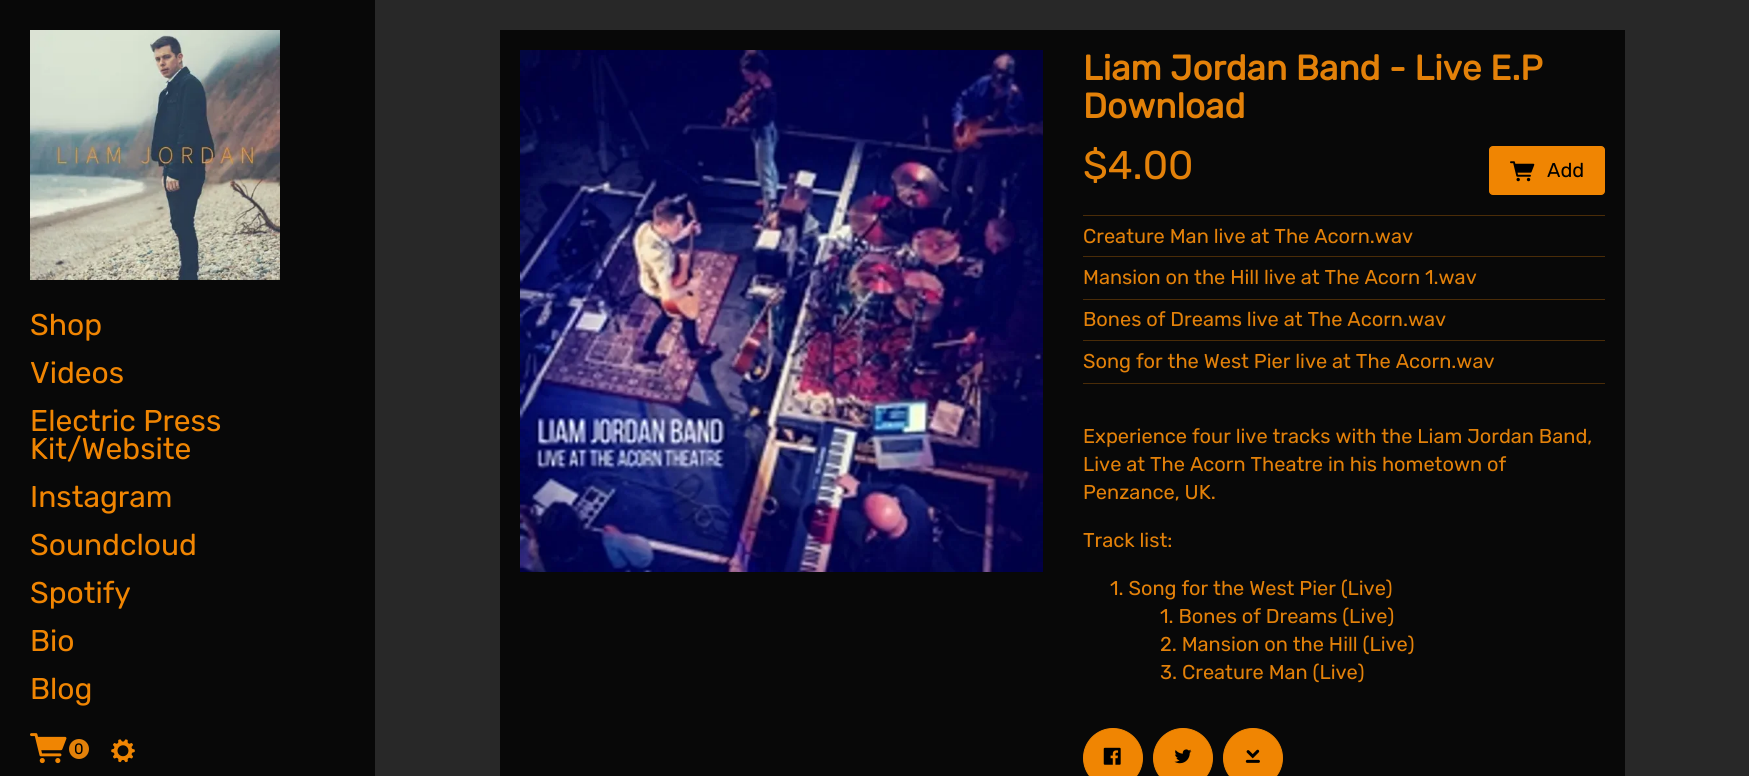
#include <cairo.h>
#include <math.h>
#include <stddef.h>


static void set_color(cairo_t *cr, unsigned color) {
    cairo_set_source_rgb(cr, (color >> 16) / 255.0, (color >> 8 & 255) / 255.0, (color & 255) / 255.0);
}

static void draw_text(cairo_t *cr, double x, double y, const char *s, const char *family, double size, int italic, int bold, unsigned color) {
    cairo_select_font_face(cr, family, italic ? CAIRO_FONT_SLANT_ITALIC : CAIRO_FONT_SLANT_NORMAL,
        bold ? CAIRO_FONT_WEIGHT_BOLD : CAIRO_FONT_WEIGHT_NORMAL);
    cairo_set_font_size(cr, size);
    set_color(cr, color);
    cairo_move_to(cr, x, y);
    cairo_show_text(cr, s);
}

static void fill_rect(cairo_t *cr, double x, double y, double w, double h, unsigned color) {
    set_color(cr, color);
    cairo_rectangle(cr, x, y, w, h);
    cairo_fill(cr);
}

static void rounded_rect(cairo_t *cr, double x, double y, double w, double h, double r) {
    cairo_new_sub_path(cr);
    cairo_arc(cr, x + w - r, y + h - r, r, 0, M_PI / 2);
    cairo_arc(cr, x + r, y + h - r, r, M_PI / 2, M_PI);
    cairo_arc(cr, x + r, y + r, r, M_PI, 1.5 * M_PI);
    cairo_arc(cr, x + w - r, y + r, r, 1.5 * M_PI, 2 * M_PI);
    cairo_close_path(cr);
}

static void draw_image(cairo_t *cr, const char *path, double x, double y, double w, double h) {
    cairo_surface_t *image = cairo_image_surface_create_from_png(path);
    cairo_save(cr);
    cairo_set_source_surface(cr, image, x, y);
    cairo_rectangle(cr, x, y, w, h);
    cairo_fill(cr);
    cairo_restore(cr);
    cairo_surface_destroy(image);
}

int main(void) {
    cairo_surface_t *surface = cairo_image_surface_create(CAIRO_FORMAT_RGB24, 1749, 776);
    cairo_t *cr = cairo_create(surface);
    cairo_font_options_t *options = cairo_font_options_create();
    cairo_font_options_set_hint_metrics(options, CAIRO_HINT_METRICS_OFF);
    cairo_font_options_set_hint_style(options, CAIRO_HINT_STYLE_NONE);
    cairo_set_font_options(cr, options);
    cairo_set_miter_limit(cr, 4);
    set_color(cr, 0x282828);
    cairo_paint(cr);
    fill_rect(cr, 0, 0, 375, 776, 0x080808);
    draw_image(cr, "assets/img1.png", 30, 30, 250, 250);
    draw_text(cr, 30, 335, "Shop", "Rubik Light", 30, 0, 0, 0xF08502);
    draw_text(cr, 30, 383, "Videos", "Rubik Light", 30, 0, 0, 0xF08502);
    draw_text(cr, 30, 431, "Electric Press", "Rubik Light", 30, 0, 0, 0xF08502);
    draw_text(cr, 30, 459, "Kit/Website", "Rubik Light", 30, 0, 0, 0xF08502);
    draw_text(cr, 30, 507, "Instagram", "Rubik Light", 30, 0, 0, 0xF08502);
    draw_text(cr, 30, 555, "Soundcloud", "Rubik Light", 30, 0, 0, 0xF08502);
    draw_text(cr, 30, 603, "Spotify", "Rubik Light", 30, 0, 0, 0xF08502);
    draw_text(cr, 30, 651, "Bio", "Rubik Light", 30, 0, 0, 0xF08502);
    draw_text(cr, 30, 699, "Blog", "Rubik Light", 30, 0, 0, 0xF08502);
    draw_image(cr, "assets/img2.png", 30, 733, 37, 31);
    set_color(cr, 0xE38109);
    cairo_arc(cr, 79, 749, 10, 0, 2 * M_PI);
    cairo_fill(cr);
    draw_text(cr, 74, 754, "0", "Rubik Light", 15, 0, 0, 0x000000);
    draw_image(cr, "assets/img3.png", 111, 739, 24, 24);
    fill_rect(cr, 500, 30, 1125, 746, 0x080808);
    draw_image(cr, "assets/img4.png", 520, 50, 523, 522);
    draw_text(cr, 1083, 80, "Liam Jordan Band - Live E.P", "Rubik", 35, 0, 1, 0xE38109);
    draw_text(cr, 1083, 118, "Download", "Rubik", 35, 0, 1, 0xE38109);
    draw_text(cr, 1083, 179, "$4.00", "Rubik Light", 40, 0, 0, 0xE38109);
    set_color(cr, 0xF08502);
    rounded_rect(cr, 1489.5, 146.5, 115, 48, 3.5);
    cairo_fill_preserve(cr);
    cairo_set_line_width(cr, 1);
    cairo_stroke(cr);
    draw_image(cr, "assets/img5.png", 1510, 161, 25, 21);
    draw_text(cr, 1547, 177, "Add", "Rubik Light", 20, 0, 0, 0x000000);
    fill_rect(cr, 1083, 215, 522, 1, 0x4A2C08);
    fill_rect(cr, 1083, 256, 522, 1, 0x4A2C08);
    draw_text(cr, 1083, 243, "Creature Man live at The Acorn.wav", "Rubik Light", 20, 0, 0, 0xE38109);
    fill_rect(cr, 1083, 299, 522, 1, 0x4A2C08);
    draw_text(cr, 1083, 284, "Mansion on the Hill live at The Acorn 1.wav", "Rubik Light", 20, 0, 0, 0xE38109);
    fill_rect(cr, 1083, 340, 522, 1, 0x4A2C08);
    draw_text(cr, 1083, 326, "Bones of Dreams live at The Acorn.wav", "Rubik Light", 20, 0, 0, 0xE38109);
    fill_rect(cr, 1083, 383, 522, 1, 0x4A2C08);
    draw_text(cr, 1083, 368, "Song for the West Pier live at The Acorn.wav", "Rubik Light", 20, 0, 0, 0xE38109);
    draw_text(cr, 1083, 443, "Experience four live tracks with the Liam Jordan Band,", "Rubik Light", 20, 0, 0, 0xE38109);
    draw_text(cr, 1083, 471, "Live at The Acorn Theatre in his hometown of", "Rubik Light", 20, 0, 0, 0xE38109);
    draw_text(cr, 1083, 499, "Penzance, UK.", "Rubik Light", 20, 0, 0, 0xE38109);
    draw_text(cr, 1083, 547, "Track list:", "Rubik Light", 20, 0, 0, 0xE38109);
    draw_text(cr, 1110, 595, "1. Song for the West Pier (Live)", "Rubik Light", 20, 0, 0, 0xE38109);
    draw_text(cr, 1160, 623, "1. Bones of Dreams (Live)", "Rubik Light", 20, 0, 0, 0xE38109);
    draw_text(cr, 1160, 651, "2. Mansion on the Hill (Live)", "Rubik Light", 20, 0, 0, 0xE38109);
    draw_text(cr, 1160, 679, "3. Creature Man (Live)", "Rubik Light", 20, 0, 0, 0xE38109);
    set_color(cr, 0xF08502);
    cairo_new_path(cr);
    cairo_arc(cr, 1113, 758, 29.5, 0, 2 * M_PI);
    cairo_fill_preserve(cr);
    cairo_stroke(cr);
    draw_image(cr, "assets/img6.png", 1103, 747, 18, 18);
    cairo_arc(cr, 1183, 758, 29.5, 0, 2 * M_PI);
    cairo_fill_preserve(cr);
    cairo_stroke(cr);
    draw_image(cr, "assets/img7.png", 1174, 749, 18, 15);
    cairo_arc(cr, 1253, 758, 29.5, 0, 2 * M_PI);
    cairo_fill_preserve(cr);
    cairo_stroke(cr);
    draw_image(cr, "assets/img8.png", 1245, 749, 15, 14);
    cairo_surface_write_to_png(surface, "output.png");
    cairo_font_options_destroy(options);
    cairo_destroy(cr);
    cairo_surface_destroy(surface);
    return 0;
}
